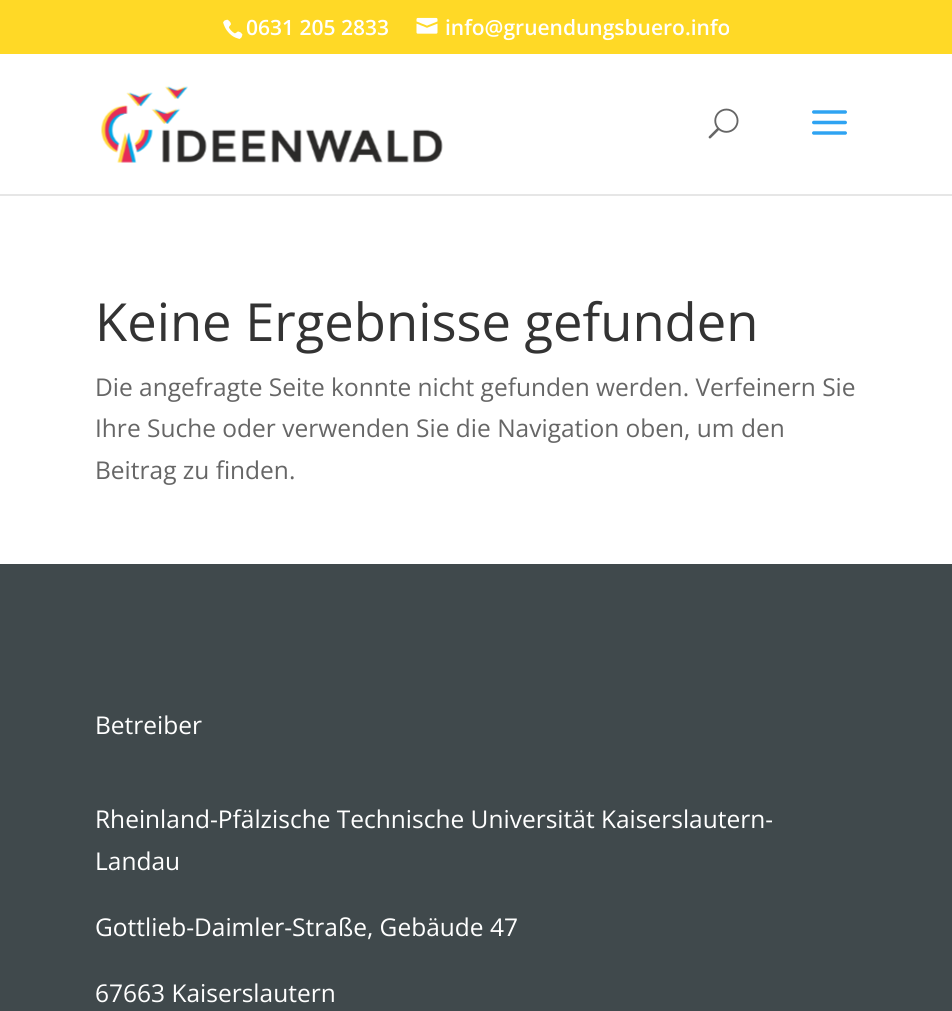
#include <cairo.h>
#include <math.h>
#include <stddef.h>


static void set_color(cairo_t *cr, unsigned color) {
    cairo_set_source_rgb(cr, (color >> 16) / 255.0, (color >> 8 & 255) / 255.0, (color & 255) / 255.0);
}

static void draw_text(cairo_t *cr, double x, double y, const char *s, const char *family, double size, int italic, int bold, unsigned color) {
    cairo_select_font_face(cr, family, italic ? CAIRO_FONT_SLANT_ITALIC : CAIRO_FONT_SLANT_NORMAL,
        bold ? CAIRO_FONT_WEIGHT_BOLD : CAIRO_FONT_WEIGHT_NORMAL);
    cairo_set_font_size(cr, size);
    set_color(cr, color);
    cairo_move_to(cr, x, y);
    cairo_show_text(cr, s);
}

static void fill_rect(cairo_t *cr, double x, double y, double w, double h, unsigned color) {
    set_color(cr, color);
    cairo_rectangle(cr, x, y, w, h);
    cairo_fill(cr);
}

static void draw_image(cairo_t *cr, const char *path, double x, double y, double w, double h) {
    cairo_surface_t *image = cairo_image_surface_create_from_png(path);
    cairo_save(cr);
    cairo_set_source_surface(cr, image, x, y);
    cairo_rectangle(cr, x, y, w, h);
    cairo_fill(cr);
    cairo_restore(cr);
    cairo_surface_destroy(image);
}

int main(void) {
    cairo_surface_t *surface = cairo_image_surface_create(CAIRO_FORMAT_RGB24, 952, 1011);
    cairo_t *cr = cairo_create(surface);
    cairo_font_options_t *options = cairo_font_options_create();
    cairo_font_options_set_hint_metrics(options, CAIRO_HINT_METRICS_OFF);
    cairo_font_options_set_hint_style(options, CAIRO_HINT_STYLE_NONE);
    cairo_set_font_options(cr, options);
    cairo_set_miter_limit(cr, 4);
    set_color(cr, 0xFFFFFF);
    cairo_paint(cr);
    fill_rect(cr, 0, 0, 952, 54, 0xFFD926);
    draw_image(cr, "assets/img1.png", 223, 19, 20, 20);
    draw_text(cr, 246, 35, "0631 205 2833", "Open Sans SemiBold", 21, 0, 0, 0xFFFFFF);
    draw_image(cr, "assets/img2.png", 416, 17, 22, 17);
    draw_text(cr, 445, 35, "info@gruendungsbuero.info", "Open Sans SemiBold", 21, 0, 0, 0xFFFFFF);
    fill_rect(cr, 0, 194, 952, 2, 0xE6E6E6);
    draw_image(cr, "assets/img3.png", 101, 86, 342, 77);
    draw_image(cr, "assets/img4.png", 708, 108, 31, 31);
    draw_image(cr, "assets/img5.png", 812, 110, 35, 25);
    draw_text(cr, 95, 341, "Keine Ergebnisse gefunden", "Open Sans", 52.5, 0, 0, 0x333333);
    draw_text(cr, 95, 396, "Die angefragte Seite konnte nicht gefunden werden. Verfeinern Sie", "Open Sans", 24.5, 0, 0, 0x666666);
    draw_text(cr, 95, 437, "Ihre Suche oder verwenden Sie die Navigation oben, um den", "Open Sans", 24.5, 0, 0, 0x666666);
    draw_text(cr, 95, 479, "Beitrag zu finden.", "Open Sans", 24.5, 0, 0, 0x666666);
    fill_rect(cr, 0, 564, 952, 447, 0x40494C);
    draw_text(cr, 95, 734, "Betreiber", "Open Sans", 24.5, 0, 0, 0xFFFFFF);
    draw_text(cr, 95, 828, "Rheinland-Pfälzische Technische Universität Kaiserslautern-", "Open Sans", 24.5, 0, 0, 0xFFFFFF);
    draw_text(cr, 95, 870, "Landau", "Open Sans", 24.5, 0, 0, 0xFFFFFF);
    draw_text(cr, 95, 936, "Gottlieb-Daimler-Straße, Gebäude 47", "Open Sans", 24.5, 0, 0, 0xFFFFFF);
    draw_text(cr, 95, 1002, "67663 Kaiserslautern", "Open Sans", 24.5, 0, 0, 0xFFFFFF);
    cairo_surface_write_to_png(surface, "output.png");
    cairo_font_options_destroy(options);
    cairo_destroy(cr);
    cairo_surface_destroy(surface);
    return 0;
}
